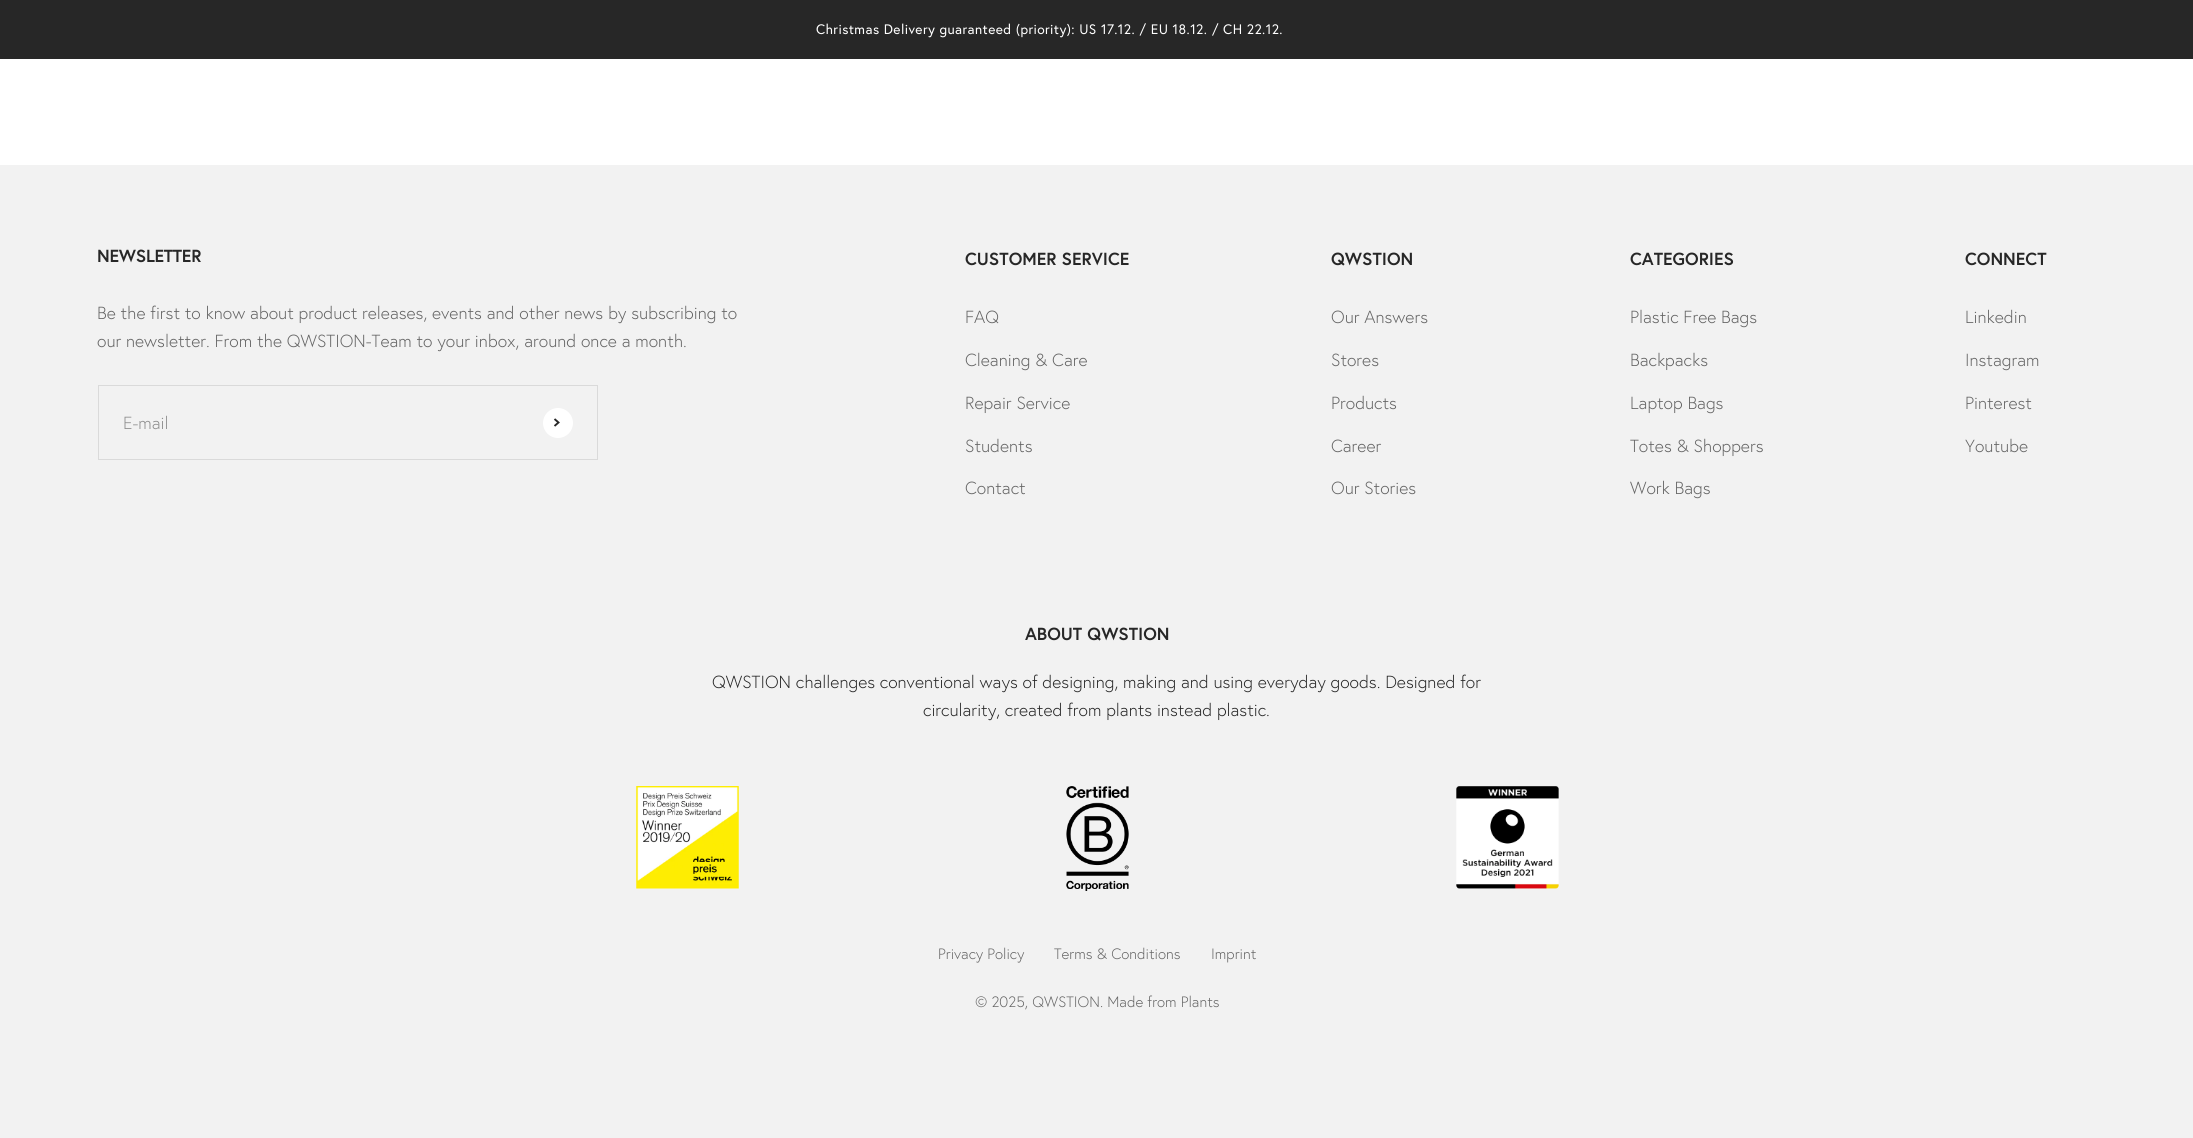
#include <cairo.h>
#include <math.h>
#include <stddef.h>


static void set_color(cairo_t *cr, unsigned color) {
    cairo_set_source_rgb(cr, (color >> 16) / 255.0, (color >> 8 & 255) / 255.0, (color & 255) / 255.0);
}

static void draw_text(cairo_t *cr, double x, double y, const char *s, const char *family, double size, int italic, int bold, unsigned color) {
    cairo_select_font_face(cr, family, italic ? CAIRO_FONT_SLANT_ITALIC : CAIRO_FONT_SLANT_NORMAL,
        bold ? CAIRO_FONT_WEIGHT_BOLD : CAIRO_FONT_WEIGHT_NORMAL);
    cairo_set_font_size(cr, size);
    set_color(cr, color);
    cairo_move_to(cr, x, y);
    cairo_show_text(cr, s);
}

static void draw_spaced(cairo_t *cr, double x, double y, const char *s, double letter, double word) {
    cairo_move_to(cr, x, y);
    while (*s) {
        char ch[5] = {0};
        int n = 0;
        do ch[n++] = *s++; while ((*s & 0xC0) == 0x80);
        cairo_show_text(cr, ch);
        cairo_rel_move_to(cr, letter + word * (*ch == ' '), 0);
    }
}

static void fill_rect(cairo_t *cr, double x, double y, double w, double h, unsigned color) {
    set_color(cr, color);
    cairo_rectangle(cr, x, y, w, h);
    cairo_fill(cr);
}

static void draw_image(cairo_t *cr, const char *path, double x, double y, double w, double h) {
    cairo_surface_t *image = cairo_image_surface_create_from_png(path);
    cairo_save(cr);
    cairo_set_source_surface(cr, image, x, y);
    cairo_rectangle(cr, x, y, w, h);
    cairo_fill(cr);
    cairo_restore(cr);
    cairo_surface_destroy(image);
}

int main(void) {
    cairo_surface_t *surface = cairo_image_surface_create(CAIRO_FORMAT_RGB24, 2193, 1138);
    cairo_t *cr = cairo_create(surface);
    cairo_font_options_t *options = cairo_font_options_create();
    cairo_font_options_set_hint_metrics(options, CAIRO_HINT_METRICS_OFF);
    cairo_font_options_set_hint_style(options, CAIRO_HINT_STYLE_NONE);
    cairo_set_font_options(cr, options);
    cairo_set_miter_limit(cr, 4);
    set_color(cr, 0xFFFFFF);
    cairo_paint(cr);
    fill_rect(cr, 0, 0, 2193, 59, 0x272727);
    cairo_select_font_face(cr, "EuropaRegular", CAIRO_FONT_SLANT_NORMAL, CAIRO_FONT_WEIGHT_NORMAL);
    cairo_set_font_size(cr, 13.75);
    set_color(cr, 0xFFFFFF);
    draw_spaced(cr, 816, 34, "Christmas Delivery guaranteed (priority): US 17.12. / EU 18.12. / CH 22.12.", 0.4, 0);
    fill_rect(cr, 0, 165, 2193, 973, 0xF2F2F2);
    cairo_select_font_face(cr, "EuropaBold", CAIRO_FONT_SLANT_NORMAL, CAIRO_FONT_WEIGHT_BOLD);
    cairo_set_font_size(cr, 17.5);
    set_color(cr, 0x272727);
    draw_spaced(cr, 97, 262, "NEWSLETTER", -0.25, 0);
    draw_text(cr, 97, 319, "Be the first to know about product releases, events and other news by subscribing to", "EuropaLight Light", 17.5, 0, 0, 0x646464);
    draw_text(cr, 97, 347, "our newsletter. From the QWSTION-Team to your inbox, around once a month.", "EuropaLight Light", 17.5, 0, 0, 0x646464);
    cairo_rectangle(cr, 98.5, 385.5, 499, 74);
    set_color(cr, 0xDADADA);
    cairo_set_line_width(cr, 1);
    cairo_stroke(cr);
    draw_text(cr, 123, 429, "E-mail", "EuropaLight Light", 17.5, 0, 0, 0x8D8D8D);
    set_color(cr, 0xFFFFFF);
    cairo_new_path(cr);
    cairo_arc(cr, 558, 423, 15, 0, 2 * M_PI);
    cairo_fill(cr);
    cairo_new_path(cr);
    cairo_move_to(cr, 554.5, 426);
    cairo_line_to(cr, 558.5, 422.5);
    cairo_line_to(cr, 554.5, 419);
    set_color(cr, 0x272727);
    cairo_set_line_width(cr, 1.9);
    cairo_stroke(cr);
    draw_text(cr, 965, 265, "CUSTOMER SERVICE", "EuropaBold", 17.5, 0, 1, 0x272727);
    draw_text(cr, 965, 323, "FAQ", "EuropaLight Light", 17.5, 0, 0, 0x646464);
    draw_text(cr, 965, 366, "Cleaning & Care", "EuropaLight Light", 17.5, 0, 0, 0x646464);
    draw_text(cr, 965, 409, "Repair Service", "EuropaLight Light", 17.5, 0, 0, 0x646464);
    draw_text(cr, 965, 452, "Students", "EuropaLight Light", 17.5, 0, 0, 0x646464);
    draw_text(cr, 965, 494, "Contact", "EuropaLight Light", 17.5, 0, 0, 0x646464);
    draw_text(cr, 1331, 265, "QWSTION", "EuropaBold", 17.5, 0, 1, 0x272727);
    draw_text(cr, 1331, 323, "Our Answers", "EuropaLight Light", 17.5, 0, 0, 0x646464);
    draw_text(cr, 1331, 366, "Stores", "EuropaLight Light", 17.5, 0, 0, 0x646464);
    draw_text(cr, 1331, 409, "Products", "EuropaLight Light", 17.5, 0, 0, 0x646464);
    draw_text(cr, 1331, 452, "Career", "EuropaLight Light", 17.5, 0, 0, 0x646464);
    draw_text(cr, 1331, 494, "Our Stories", "EuropaLight Light", 17.5, 0, 0, 0x646464);
    draw_text(cr, 1630, 265, "CATEGORIES", "EuropaBold", 17.5, 0, 1, 0x272727);
    draw_text(cr, 1630, 323, "Plastic Free Bags", "EuropaLight Light", 17.5, 0, 0, 0x646464);
    draw_text(cr, 1630, 366, "Backpacks", "EuropaLight Light", 17.5, 0, 0, 0x646464);
    draw_text(cr, 1630, 409, "Laptop Bags", "EuropaLight Light", 17.5, 0, 0, 0x646464);
    draw_text(cr, 1630, 452, "Totes & Shoppers", "EuropaLight Light", 17.5, 0, 0, 0x646464);
    draw_text(cr, 1630, 494, "Work Bags", "EuropaLight Light", 17.5, 0, 0, 0x646464);
    draw_text(cr, 1965, 265, "CONNECT", "EuropaBold", 17.5, 0, 1, 0x272727);
    draw_text(cr, 1965, 323, "Linkedin", "EuropaLight Light", 17.5, 0, 0, 0x646464);
    draw_text(cr, 1965, 366, "Instagram", "EuropaLight Light", 17.5, 0, 0, 0x646464);
    draw_text(cr, 1965, 409, "Pinterest", "EuropaLight Light", 17.5, 0, 0, 0x646464);
    draw_text(cr, 1965, 452, "Youtube", "EuropaLight Light", 17.5, 0, 0, 0x646464);
    draw_text(cr, 1025, 640, "ABOUT QWSTION", "EuropaBold", 17.5, 0, 1, 0x272727);
    draw_text(cr, 712, 688, "QWSTION challenges conventional ways of designing, making and using everyday goods. Designed for", "EuropaLight Light", 17.5, 0, 0, 0x272727);
    draw_text(cr, 923, 716, "circularity, created from plants instead plastic.", "EuropaLight Light", 17.5, 0, 0, 0x272727);
    draw_image(cr, "assets/img1.png", 636, 786, 103, 103);
    draw_image(cr, "assets/img2.png", 1066, 786, 63, 105);
    draw_image(cr, "assets/img3.png", 1456, 786, 103, 103);
    draw_text(cr, 938, 959, "Privacy Policy", "EuropaLight Light", 15, 0, 0, 0x646464);
    draw_text(cr, 1054, 959, "Terms & Conditions", "EuropaLight Light", 15, 0, 0, 0x646464);
    draw_text(cr, 1211, 959, "Imprint", "EuropaLight Light", 15, 0, 0, 0x646464);
    draw_text(cr, 975, 1007, "© 2025, QWSTION. Made from Plants", "EuropaLight Light", 15, 0, 0, 0x646464);
    cairo_surface_write_to_png(surface, "output.png");
    cairo_font_options_destroy(options);
    cairo_destroy(cr);
    cairo_surface_destroy(surface);
    return 0;
}
